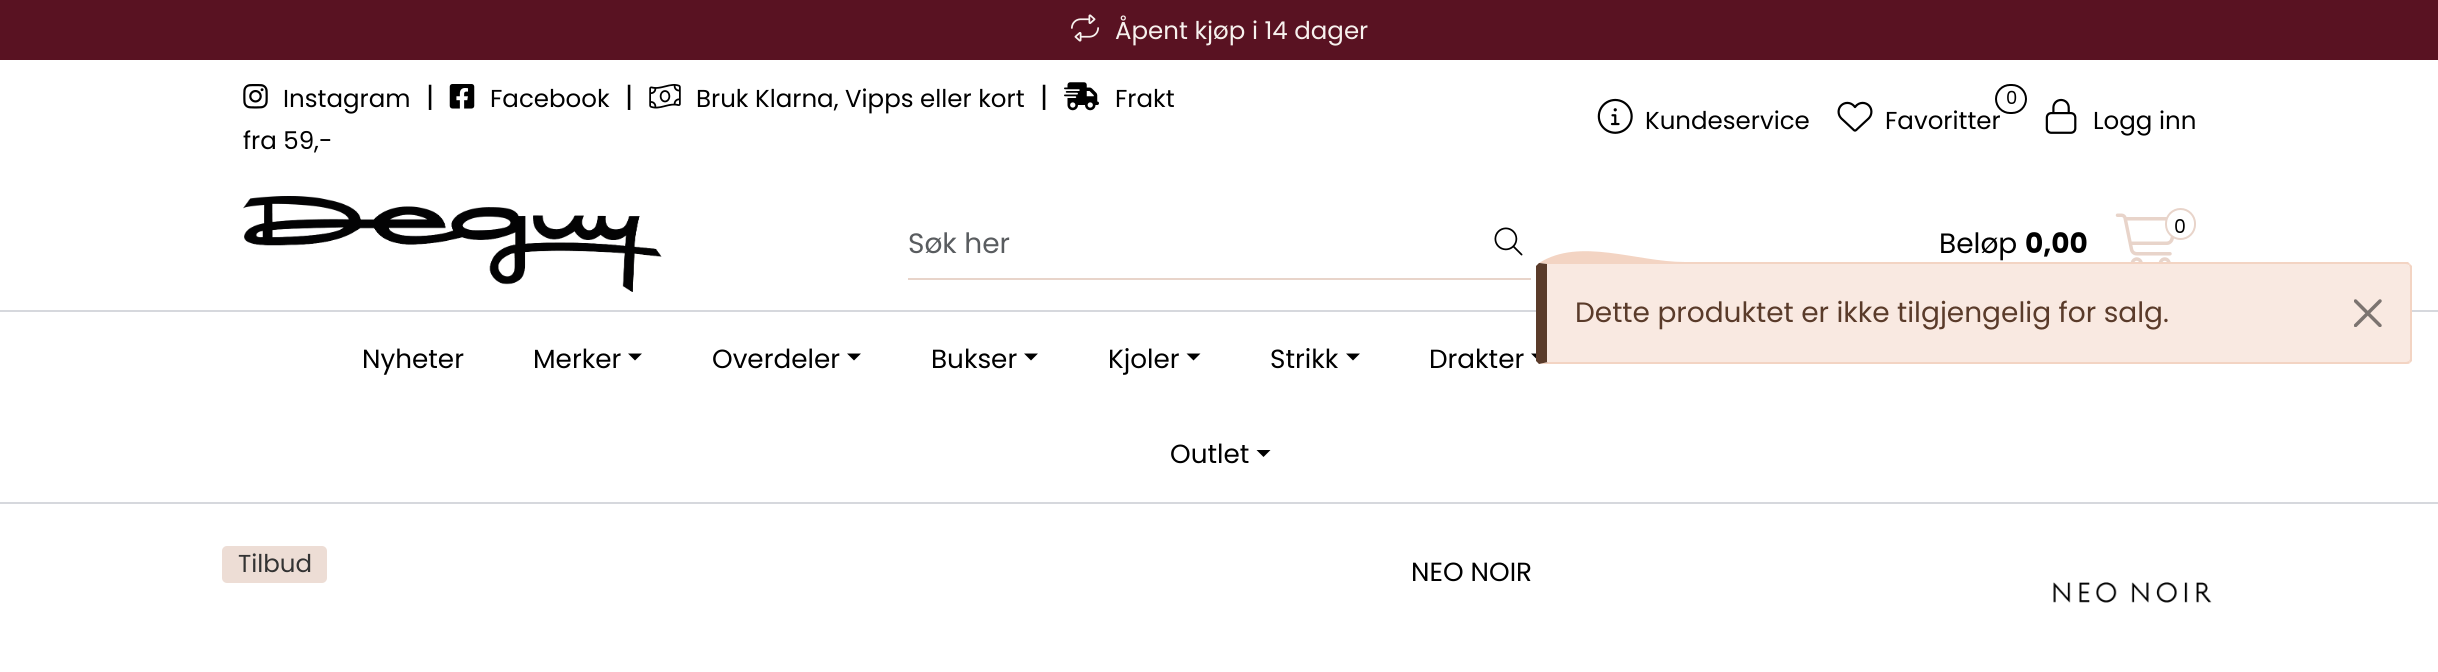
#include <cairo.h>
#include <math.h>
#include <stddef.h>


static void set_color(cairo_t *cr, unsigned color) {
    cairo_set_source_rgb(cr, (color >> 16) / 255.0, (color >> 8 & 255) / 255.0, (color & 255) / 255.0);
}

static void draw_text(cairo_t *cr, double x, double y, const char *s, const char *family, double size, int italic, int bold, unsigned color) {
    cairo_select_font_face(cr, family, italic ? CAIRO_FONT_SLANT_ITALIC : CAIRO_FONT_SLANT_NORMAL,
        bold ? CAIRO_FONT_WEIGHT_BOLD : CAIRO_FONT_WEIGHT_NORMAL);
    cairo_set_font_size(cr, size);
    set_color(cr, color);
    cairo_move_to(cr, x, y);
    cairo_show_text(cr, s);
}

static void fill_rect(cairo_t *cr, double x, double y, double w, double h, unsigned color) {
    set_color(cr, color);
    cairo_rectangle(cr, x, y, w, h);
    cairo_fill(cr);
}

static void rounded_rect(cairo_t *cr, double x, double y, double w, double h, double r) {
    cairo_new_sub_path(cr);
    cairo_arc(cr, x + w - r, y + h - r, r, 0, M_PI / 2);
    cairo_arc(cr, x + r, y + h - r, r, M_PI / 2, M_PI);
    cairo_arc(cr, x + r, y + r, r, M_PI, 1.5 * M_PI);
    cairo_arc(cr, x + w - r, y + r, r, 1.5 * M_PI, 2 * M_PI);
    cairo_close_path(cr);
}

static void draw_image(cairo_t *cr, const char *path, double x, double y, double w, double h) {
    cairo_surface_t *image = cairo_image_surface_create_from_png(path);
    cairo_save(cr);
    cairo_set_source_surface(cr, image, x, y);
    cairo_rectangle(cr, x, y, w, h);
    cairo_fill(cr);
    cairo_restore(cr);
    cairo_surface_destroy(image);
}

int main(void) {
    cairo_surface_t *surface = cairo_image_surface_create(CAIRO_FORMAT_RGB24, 2438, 672);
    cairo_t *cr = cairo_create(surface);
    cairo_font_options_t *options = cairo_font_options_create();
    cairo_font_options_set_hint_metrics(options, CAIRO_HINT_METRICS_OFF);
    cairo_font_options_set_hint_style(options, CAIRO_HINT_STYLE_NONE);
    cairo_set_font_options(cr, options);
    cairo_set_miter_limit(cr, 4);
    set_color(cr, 0xFFFFFF);
    cairo_paint(cr);
    fill_rect(cr, 0, 0, 2438, 60, 0x591222);
    draw_image(cr, "assets/img1.png", 1071, 14, 28, 28);
    draw_text(cr, 1115, 39, "Åpent kjøp i 14 dager", "Poppins", 24.5, 0, 0, 0xF7F1EE);
    draw_text(cr, 426, 107, "|", "Poppins", 28, 0, 0, 0x000000);
    draw_text(cr, 625, 107, "|", "Poppins", 28, 0, 0, 0x000000);
    draw_text(cr, 1040, 107, "|", "Poppins", 28, 0, 0, 0x000000);
    draw_image(cr, "assets/img2.png", 1064, 82, 35, 29);
    draw_text(cr, 1115, 107, "Frakt", "Poppins", 24.5, 0, 0, 0x000000);
    draw_text(cr, 243, 149, "fra 59,-", "Poppins", 24.5, 0, 0, 0x000000);
    draw_image(cr, "assets/img3.png", 243, 84, 25, 25);
    draw_text(cr, 283, 107, "Instagram", "Poppins", 24.5, 0, 0, 0x000000);
    draw_image(cr, "assets/img4.png", 449, 84, 26, 25);
    draw_text(cr, 490, 107, "Facebook", "Poppins", 24.5, 0, 0, 0x000000);
    draw_image(cr, "assets/img5.png", 649, 84, 32, 25);
    draw_text(cr, 696, 107, "Bruk Klarna, Vipps eller kort", "Poppins", 24.5, 0, 0, 0x000000);
    draw_image(cr, "assets/img6.png", 1597, 98, 36, 36);
    draw_text(cr, 1645, 129, "Kundeservice", "Poppins", 24.5, 0, 0, 0x000000);
    rounded_rect(cr, 1996, 85, 30, 28, 14);
    cairo_stroke(cr);
    draw_text(cr, 2006, 104, "0", "Poppins", 18, 0, 0, 0x000000);
    draw_image(cr, "assets/img7.png", 1837, 101, 36, 31);
    draw_text(cr, 1885, 129, "Favoritter", "Poppins", 24.5, 0, 0, 0x000000);
    draw_image(cr, "assets/img8.png", 2045, 98, 32, 36);
    draw_text(cr, 2093, 129, "Logg inn", "Poppins", 24.5, 0, 0, 0x000000);
    draw_image(cr, "assets/img9.png", 243, 196, 419, 96);
    fill_rect(cr, 908, 278, 623, 2, 0xE8D4CA);
    draw_text(cr, 908, 253, "Søk her", "Poppins", 28, 0, 0, 0x595C5F);
    draw_image(cr, "assets/img10.png", 1494, 227, 29, 29);
    draw_image(cr, "assets/img11.png", 2115, 213, 59, 49);
    set_color(cr, 0xFFFFFF);
    rounded_rect(cr, 2166, 209, 29, 30, 14.5);
    cairo_fill_preserve(cr);
    set_color(cr, 0xE8D4CA);
    cairo_stroke(cr);
    draw_text(cr, 2174, 233, "0", "Poppins", 19, 0, 0, 0x000000);
    draw_text(cr, 1939, 253, "Beløp", "Poppins", 28, 0, 0, 0x000000);
    draw_text(cr, 2025, 253, "0,00", "Poppins", 28, 0, 1, 0x000000);
    fill_rect(cr, 0, 310, 2438, 2, 0xD6D8DD);
    fill_rect(cr, 0, 502, 2438, 2, 0xD6D8DD);
    draw_text(cr, 362, 368, "Nyheter", "Poppins", 26.25, 0, 0, 0x000000);
    draw_text(cr, 533, 368, "Merker", "Poppins", 26.25, 0, 0, 0x000000);
    cairo_new_path(cr);
    cairo_move_to(cr, 628, 353.5);
    cairo_line_to(cr, 642, 353.5);
    cairo_line_to(cr, 635, 360.5);
    cairo_close_path(cr);
    cairo_fill(cr);
    draw_text(cr, 712, 368, "Overdeler", "Poppins", 26.25, 0, 0, 0x000000);
    cairo_new_path(cr);
    cairo_move_to(cr, 847, 353.5);
    cairo_line_to(cr, 861, 353.5);
    cairo_line_to(cr, 854, 360.5);
    cairo_close_path(cr);
    cairo_fill(cr);
    draw_text(cr, 931, 368, "Bukser", "Poppins", 26.25, 0, 0, 0x000000);
    cairo_new_path(cr);
    cairo_move_to(cr, 1024, 353.5);
    cairo_line_to(cr, 1038, 353.5);
    cairo_line_to(cr, 1031, 360.5);
    cairo_close_path(cr);
    cairo_fill(cr);
    draw_text(cr, 1108, 368, "Kjoler", "Poppins", 26.25, 0, 0, 0x000000);
    cairo_new_path(cr);
    cairo_move_to(cr, 1186.5, 353.5);
    cairo_line_to(cr, 1200.5, 353.5);
    cairo_line_to(cr, 1193.5, 360.5);
    cairo_close_path(cr);
    cairo_fill(cr);
    draw_text(cr, 1270, 368, "Strikk", "Poppins", 26.25, 0, 0, 0x000000);
    cairo_new_path(cr);
    cairo_move_to(cr, 1346, 353.5);
    cairo_line_to(cr, 1360, 353.5);
    cairo_line_to(cr, 1353, 360.5);
    cairo_close_path(cr);
    cairo_fill(cr);
    draw_text(cr, 1429, 368, "Drakter", "Poppins", 26.25, 0, 0, 0x000000);
    cairo_new_path(cr);
    cairo_move_to(cr, 1531, 353.5);
    cairo_line_to(cr, 1545, 353.5);
    cairo_line_to(cr, 1538, 360.5);
    cairo_close_path(cr);
    cairo_fill(cr);
    draw_text(cr, 1170, 463, "Outlet", "Poppins", 26.25, 0, 0, 0x000000);
    cairo_new_path(cr);
    cairo_move_to(cr, 1256.5, 450);
    cairo_line_to(cr, 1270.5, 450);
    cairo_line_to(cr, 1263.5, 457);
    cairo_close_path(cr);
    cairo_fill(cr);
    set_color(cr, 0xF9E9E1);
    cairo_new_path(cr);
    cairo_move_to(cr, 1547, 264);
    cairo_line_to(cr, 2406, 264);
    cairo_curve_to(cr, 2408, 264, 2410, 266, 2410, 268);
    cairo_line_to(cr, 2410, 359);
    cairo_curve_to(cr, 2410, 361, 2408, 362, 2406, 362);
    cairo_line_to(cr, 1547, 362);
    cairo_close_path(cr);
    cairo_fill(cr);
    set_color(cr, 0xF3D4C3);
    cairo_new_path(cr);
    cairo_move_to(cr, 1547, 264);
    cairo_line_to(cr, 1539, 263);
    cairo_curve_to(cr, 1580, 237, 1636, 262, 1685, 262);
    cairo_line_to(cr, 2408, 262);
    cairo_line_to(cr, 2410, 264);
    cairo_line_to(cr, 2409, 265);
    cairo_line_to(cr, 2406, 264);
    cairo_close_path(cr);
    cairo_fill(cr);
    cairo_new_path(cr);
    cairo_move_to(cr, 2412, 361);
    cairo_line_to(cr, 2410, 363);
    cairo_line_to(cr, 2409, 361);
    cairo_line_to(cr, 2410, 359);
    cairo_line_to(cr, 2410, 268);
    cairo_line_to(cr, 2409, 265);
    cairo_line_to(cr, 2410, 264);
    cairo_line_to(cr, 2412, 266);
    cairo_close_path(cr);
    cairo_fill(cr);
    cairo_new_path(cr);
    cairo_move_to(cr, 1542, 364);
    cairo_line_to(cr, 2406, 364);
    cairo_curve_to(cr, 2408, 364, 2409, 364, 2410, 363);
    cairo_line_to(cr, 2409, 361);
    cairo_line_to(cr, 2406, 362);
    cairo_line_to(cr, 1548, 362);
    cairo_line_to(cr, 1539, 364);
    cairo_close_path(cr);
    cairo_fill(cr);
    set_color(cr, 0x5A3B2A);
    cairo_new_path(cr);
    cairo_move_to(cr, 1536, 266);
    cairo_line_to(cr, 1539, 263);
    cairo_line_to(cr, 1547, 264);
    cairo_line_to(cr, 1547, 362);
    cairo_line_to(cr, 1548, 362);
    cairo_line_to(cr, 1539, 364);
    cairo_line_to(cr, 1536, 361);
    cairo_close_path(cr);
    cairo_fill(cr);
    draw_text(cr, 1575, 322, "Dette produktet er ikke tilgjengelig for salg.", "Poppins", 28, 0, 0, 0x5A3B2A);
    draw_image(cr, "assets/img12.png", 2354, 299, 28, 28);
    set_color(cr, 0xEDDDD5);
    rounded_rect(cr, 222, 546, 105, 37, 5);
    cairo_fill(cr);
    draw_text(cr, 238, 572, "Tilbud", "Poppins", 24.5, 0, 0, 0x333333);
    draw_text(cr, 1411, 581, "NEO NOIR", "Poppins", 26.25, 0, 0, 0x000000);
    draw_image(cr, "assets/img13.png", 2053, 582, 159, 21);
    cairo_surface_write_to_png(surface, "output.png");
    cairo_font_options_destroy(options);
    cairo_destroy(cr);
    cairo_surface_destroy(surface);
    return 0;
}
